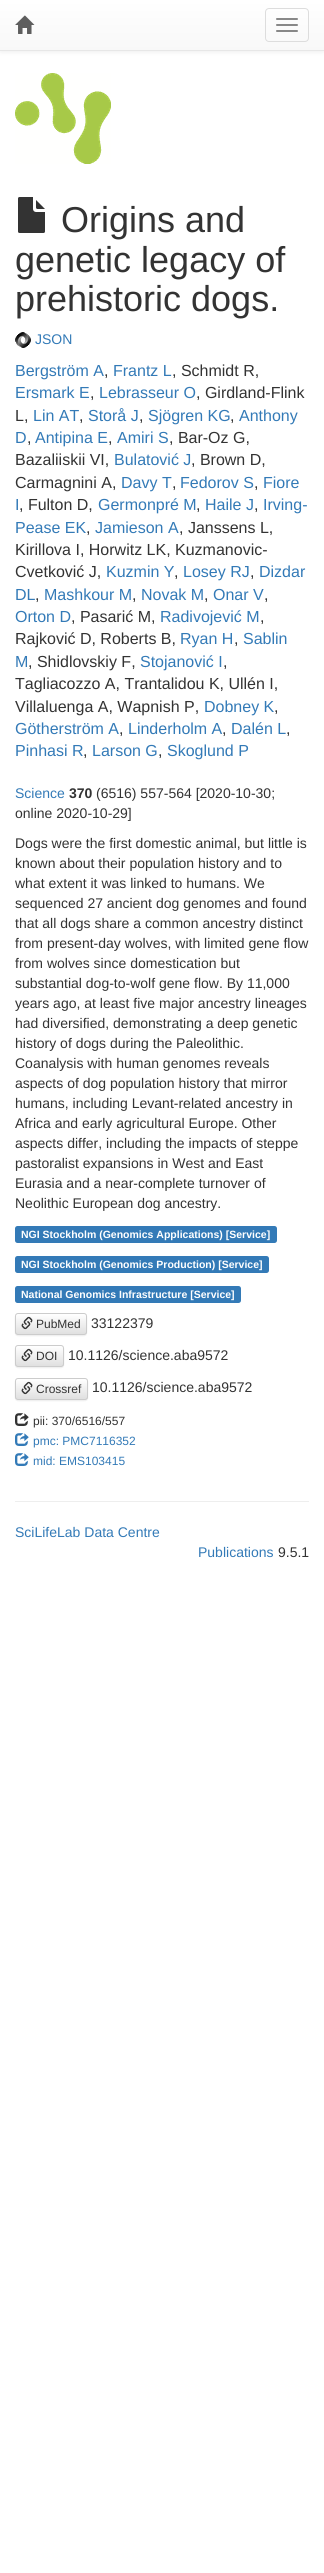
#include <cairo.h>
#include <math.h>
#include <stddef.h>


static void set_color(cairo_t *cr, unsigned color) {
    cairo_set_source_rgb(cr, (color >> 16) / 255.0, (color >> 8 & 255) / 255.0, (color & 255) / 255.0);
}

static void draw_text(cairo_t *cr, double x, double y, const char *s, const char *family, double size, int italic, int bold, unsigned color) {
    cairo_select_font_face(cr, family, italic ? CAIRO_FONT_SLANT_ITALIC : CAIRO_FONT_SLANT_NORMAL,
        bold ? CAIRO_FONT_WEIGHT_BOLD : CAIRO_FONT_WEIGHT_NORMAL);
    cairo_set_font_size(cr, size);
    set_color(cr, color);
    cairo_move_to(cr, x, y);
    cairo_show_text(cr, s);
}

static void fill_rect(cairo_t *cr, double x, double y, double w, double h, unsigned color) {
    set_color(cr, color);
    cairo_rectangle(cr, x, y, w, h);
    cairo_fill(cr);
}

static void rounded_rect(cairo_t *cr, double x, double y, double w, double h, double r) {
    cairo_new_sub_path(cr);
    cairo_arc(cr, x + w - r, y + h - r, r, 0, M_PI / 2);
    cairo_arc(cr, x + r, y + h - r, r, M_PI / 2, M_PI);
    cairo_arc(cr, x + r, y + r, r, M_PI, 1.5 * M_PI);
    cairo_arc(cr, x + w - r, y + r, r, 1.5 * M_PI, 2 * M_PI);
    cairo_close_path(cr);
}

static void draw_shadow(cairo_t *cr, double x, double y, double w, double h, double r, double blur, double alpha) {
    cairo_push_group_with_content(cr, CAIRO_CONTENT_ALPHA);
    cairo_set_operator(cr, CAIRO_OPERATOR_SOURCE);
    for (int i = 15; i >= -15 && fmin(w, h) + blur * i / 3 > 0; i -= 2) {
        double e = blur * i / 6;
        cairo_set_source_rgba(cr, 0, 0, 0, alpha * erfc((i - 1) / 8.5) / 2);
        rounded_rect(cr, x - e, y - e, w + 2 * e, h + 2 * e, fmax(0, fmin(r + e + blur * .6, fmin(w, h) / 2 + e)));
        cairo_fill(cr);
    }
    cairo_pattern_t *soft = cairo_pop_group(cr);
    cairo_mask(cr, soft);
    cairo_pattern_destroy(soft);
}

static void draw_image(cairo_t *cr, const char *path, double x, double y, double w, double h) {
    cairo_surface_t *image = cairo_image_surface_create_from_png(path);
    cairo_save(cr);
    cairo_set_source_surface(cr, image, x, y);
    cairo_rectangle(cr, x, y, w, h);
    cairo_fill(cr);
    cairo_restore(cr);
    cairo_surface_destroy(image);
}

int main(void) {
    cairo_surface_t *surface = cairo_image_surface_create(CAIRO_FORMAT_RGB24, 324, 2573);
    cairo_t *cr = cairo_create(surface);
    cairo_font_options_t *options = cairo_font_options_create();
    cairo_font_options_set_hint_metrics(options, CAIRO_HINT_METRICS_OFF);
    cairo_font_options_set_hint_style(options, CAIRO_HINT_STYLE_NONE);
    cairo_set_font_options(cr, options);
    cairo_set_miter_limit(cr, 4);
    cairo_pattern_t *gradient;
    set_color(cr, 0xFFFFFF);
    cairo_paint(cr);
    set_color(cr, 0x000000);
    draw_shadow(cr, 0, 1, 324, 51, 0, 2.5, 0.07);
    gradient = cairo_pattern_create_linear(162, 0, 162, 50);
    cairo_pattern_add_color_stop_rgba(gradient, 0, 1, 1, 1, 1);
    cairo_pattern_add_color_stop_rgba(gradient, 1, 0.973, 0.973, 0.973, 1);
    cairo_set_source(cr, gradient);
    cairo_pattern_destroy(gradient);
    cairo_rectangle(cr, 0, 0, 324, 50);
    cairo_fill(cr);
    fill_rect(cr, 0, 50, 324, 1, 0xE7E7E7);
    draw_image(cr, "assets/img1.png", 15, 15, 20, 19);
    rounded_rect(cr, 265.5, 8.5, 43, 33, 3.5);
    set_color(cr, 0xDDDDDD);
    cairo_set_line_width(cr, 1);
    cairo_stroke(cr);
    set_color(cr, 0x888888);
    rounded_rect(cr, 276, 18, 22, 2, 1);
    cairo_fill(cr);
    rounded_rect(cr, 276, 24, 22, 2, 1);
    cairo_fill(cr);
    rounded_rect(cr, 276, 30, 22, 2, 1);
    cairo_fill(cr);
    draw_image(cr, "assets/img2.png", 15, 73, 96, 91);
    draw_image(cr, "assets/img3.png", 18, 197, 27, 36);
    draw_text(cr, 61, 232, "Origins and", "Liberation Sans", 36, 0, 0, 0x333333);
    draw_text(cr, 15, 272, "genetic legacy of", "Liberation Sans", 36, 0, 0, 0x333333);
    draw_text(cr, 15, 311, "prehistoric dogs.", "Liberation Sans", 36, 0, 0, 0x333333);
    draw_image(cr, "assets/img4.png", 15, 332, 16, 16);
    draw_text(cr, 35, 344, "JSON", "Liberation Sans", 14, 0, 0, 0x337AB7);
    draw_text(cr, 15, 376, "Bergström A", "Liberation Sans", 16, 0, 0, 0x337AB7);
    draw_text(cr, 104, 376, ",", "Liberation Sans", 16, 0, 0, 0x333333);
    draw_text(cr, 113, 376, "Frantz L", "Liberation Sans", 16, 0, 0, 0x337AB7);
    draw_text(cr, 172, 376, ", Schmidt R,", "Liberation Sans", 16, 0, 0, 0x333333);
    draw_text(cr, 15, 398, "Ersmark E", "Liberation Sans", 16, 0, 0, 0x337AB7);
    draw_text(cr, 90, 398, ",", "Liberation Sans", 16, 0, 0, 0x333333);
    draw_text(cr, 99, 398, "Lebrasseur O", "Liberation Sans", 16, 0, 0, 0x337AB7);
    draw_text(cr, 196, 398, ", Girdland-Flink", "Liberation Sans", 16, 0, 0, 0x333333);
    draw_text(cr, 15, 421, "L,", "Liberation Sans", 16, 0, 0, 0x333333);
    draw_text(cr, 33, 421, "Lin AT", "Liberation Sans", 16, 0, 0, 0x337AB7);
    draw_text(cr, 79, 421, ",", "Liberation Sans", 16, 0, 0, 0x333333);
    draw_text(cr, 88, 421, "Storå J", "Liberation Sans", 16, 0, 0, 0x337AB7);
    draw_text(cr, 139, 421, ",", "Liberation Sans", 16, 0, 0, 0x333333);
    draw_text(cr, 148, 421, "Sjögren KG", "Liberation Sans", 16, 0, 0, 0x337AB7);
    draw_text(cr, 230, 421, ",", "Liberation Sans", 16, 0, 0, 0x333333);
    draw_text(cr, 239, 421, "Anthony", "Liberation Sans", 16, 0, 0, 0x337AB7);
    draw_text(cr, 15, 443, "D", "Liberation Sans", 16, 0, 0, 0x337AB7);
    draw_text(cr, 35, 443, "Antipina E", "Liberation Sans", 16, 0, 0, 0x337AB7);
    draw_text(cr, 117, 443, "Amiri S", "Liberation Sans", 16, 0, 0, 0x337AB7);
    draw_text(cr, 169, 443, ", Bar-Oz G,", "Liberation Sans", 16, 0, 0, 0x333333);
    draw_text(cr, 27, 443, ",", "Liberation Sans", 16, 0, 0, 0x333333);
    draw_text(cr, 108, 443, ",", "Liberation Sans", 16, 0, 0, 0x333333);
    draw_text(cr, 15, 465, "Bazaliiskii VI,", "Liberation Sans", 16, 0, 0, 0x333333);
    draw_text(cr, 114, 465, "Bulatović J", "Liberation Sans", 16, 0, 0, 0x337AB7);
    draw_text(cr, 191, 465, ", Brown D,", "Liberation Sans", 16, 0, 0, 0x333333);
    draw_text(cr, 15, 488, "Carmagnini A,", "Liberation Sans", 16, 0, 0, 0x333333);
    draw_text(cr, 121, 488, "Davy T", "Liberation Sans", 16, 0, 0, 0x337AB7);
    draw_text(cr, 172, 488, ",", "Liberation Sans", 16, 0, 0, 0x333333);
    draw_text(cr, 180, 488, "Fedorov S", "Liberation Sans", 16, 0, 0, 0x337AB7);
    draw_text(cr, 254, 488, ",", "Liberation Sans", 16, 0, 0, 0x333333);
    draw_text(cr, 263, 488, "Fiore", "Liberation Sans", 16, 0, 0, 0x337AB7);
    draw_text(cr, 15, 510, "I", "Liberation Sans", 16, 0, 0, 0x337AB7);
    draw_text(cr, 19, 510, ", Fulton D,", "Liberation Sans", 16, 0, 0, 0x333333);
    draw_text(cr, 98, 510, "Germonpré M", "Liberation Sans", 16, 0, 0, 0x337AB7);
    draw_text(cr, 196, 510, ",", "Liberation Sans", 16, 0, 0, 0x333333);
    draw_text(cr, 205, 510, "Haile J", "Liberation Sans", 16, 0, 0, 0x337AB7);
    draw_text(cr, 254, 510, ",", "Liberation Sans", 16, 0, 0, 0x333333);
    draw_text(cr, 263, 510, "Irving-", "Liberation Sans", 16, 0, 0, 0x337AB7);
    draw_text(cr, 15, 533, "Pease EK", "Liberation Sans", 16, 0, 0, 0x337AB7);
    draw_text(cr, 86, 533, ",", "Liberation Sans", 16, 0, 0, 0x333333);
    draw_text(cr, 95, 533, "Jamieson A", "Liberation Sans", 16, 0, 0, 0x337AB7);
    draw_text(cr, 179, 533, ", Janssens L,", "Liberation Sans", 16, 0, 0, 0x333333);
    draw_text(cr, 15, 555, "Kirillova I, Horwitz LK, Kuzmanovic-", "Liberation Sans", 16, 0, 0, 0x333333);
    draw_text(cr, 15, 577, "Cvetković J,", "Liberation Sans", 16, 0, 0, 0x333333);
    draw_text(cr, 106, 577, "Kuzmin Y", "Liberation Sans", 16, 0, 0, 0x337AB7);
    draw_text(cr, 174, 577, ",", "Liberation Sans", 16, 0, 0, 0x333333);
    draw_text(cr, 183, 577, "Losey RJ", "Liberation Sans", 16, 0, 0, 0x337AB7);
    draw_text(cr, 250, 577, ",", "Liberation Sans", 16, 0, 0, 0x333333);
    draw_text(cr, 259, 577, "Dizdar", "Liberation Sans", 16, 0, 0, 0x337AB7);
    draw_text(cr, 15, 600, "DL", "Liberation Sans", 16, 0, 0, 0x337AB7);
    draw_text(cr, 44, 600, "Mashkour M", "Liberation Sans", 16, 0, 0, 0x337AB7);
    draw_text(cr, 141, 600, "Novak M", "Liberation Sans", 16, 0, 0, 0x337AB7);
    draw_text(cr, 213, 600, "Onar V", "Liberation Sans", 16, 0, 0, 0x337AB7);
    draw_text(cr, 35, 600, ",", "Liberation Sans", 16, 0, 0, 0x333333);
    draw_text(cr, 132, 600, ",", "Liberation Sans", 16, 0, 0, 0x333333);
    draw_text(cr, 204, 600, ",", "Liberation Sans", 16, 0, 0, 0x333333);
    draw_text(cr, 264, 600, ",", "Liberation Sans", 16, 0, 0, 0x333333);
    draw_text(cr, 15, 622, "Orton D", "Liberation Sans", 16, 0, 0, 0x337AB7);
    draw_text(cr, 71, 622, ", Pasarić M,", "Liberation Sans", 16, 0, 0, 0x333333);
    draw_text(cr, 160, 622, "Radivojević M", "Liberation Sans", 16, 0, 0, 0x337AB7);
    draw_text(cr, 260, 622, ",", "Liberation Sans", 16, 0, 0, 0x333333);
    draw_text(cr, 15, 644, "Rajković D, Roberts B,", "Liberation Sans", 16, 0, 0, 0x333333);
    draw_text(cr, 180, 644, "Ryan H", "Liberation Sans", 16, 0, 0, 0x337AB7);
    draw_text(cr, 234, 644, ",", "Liberation Sans", 16, 0, 0, 0x333333);
    draw_text(cr, 243, 644, "Sablin", "Liberation Sans", 16, 0, 0, 0x337AB7);
    draw_text(cr, 15, 667, "M", "Liberation Sans", 16, 0, 0, 0x337AB7);
    draw_text(cr, 28, 667, ", Shidlovskiy F,", "Liberation Sans", 16, 0, 0, 0x333333);
    draw_text(cr, 140, 667, "Stojanović I", "Liberation Sans", 16, 0, 0, 0x337AB7);
    draw_text(cr, 223, 667, ",", "Liberation Sans", 16, 0, 0, 0x333333);
    draw_text(cr, 15, 689, "Tagliacozzo A, Trantalidou K, Ullén I,", "Liberation Sans", 16, 0, 0, 0x333333);
    draw_text(cr, 15, 712, "Villaluenga A, Wapnish P,", "Liberation Sans", 16, 0, 0, 0x333333);
    draw_text(cr, 204, 712, "Dobney K", "Liberation Sans", 16, 0, 0, 0x337AB7);
    draw_text(cr, 274, 712, ",", "Liberation Sans", 16, 0, 0, 0x333333);
    draw_text(cr, 15, 734, "Götherström A", "Liberation Sans", 16, 0, 0, 0x337AB7);
    draw_text(cr, 119, 734, ",", "Liberation Sans", 16, 0, 0, 0x333333);
    draw_text(cr, 128, 734, "Linderholm A", "Liberation Sans", 16, 0, 0, 0x337AB7);
    draw_text(cr, 222, 734, ",", "Liberation Sans", 16, 0, 0, 0x333333);
    draw_text(cr, 231, 734, "Dalén L", "Liberation Sans", 16, 0, 0, 0x337AB7);
    draw_text(cr, 286, 734, ",", "Liberation Sans", 16, 0, 0, 0x333333);
    draw_text(cr, 15, 756, "Pinhasi R", "Liberation Sans", 16, 0, 0, 0x337AB7);
    draw_text(cr, 83, 756, ",", "Liberation Sans", 16, 0, 0, 0x333333);
    draw_text(cr, 92, 756, "Larson G", "Liberation Sans", 16, 0, 0, 0x337AB7);
    draw_text(cr, 158, 756, ",", "Liberation Sans", 16, 0, 0, 0x333333);
    draw_text(cr, 167, 756, "Skoglund P", "Liberation Sans", 16, 0, 0, 0x337AB7);
    draw_text(cr, 15, 798, "Science", "Liberation Sans", 14, 0, 0, 0x337AB7);
    draw_text(cr, 69, 798, "370", "Liberation Sans", 14, 0, 1, 0x333333);
    draw_text(cr, 96, 798, "(6516) 557-564 [2020-10-30;", "Liberation Sans", 14, 0, 0, 0x333333);
    draw_text(cr, 15, 818, "online 2020-10-29]", "Liberation Sans", 14, 0, 0, 0x333333);
    draw_text(cr, 15, 848, "Dogs were the first domestic animal, but little is", "Liberation Sans", 14, 0, 0, 0x333333);
    draw_text(cr, 15, 868, "known about their population history and to", "Liberation Sans", 14, 0, 0, 0x333333);
    draw_text(cr, 15, 888, "what extent it was linked to humans. We", "Liberation Sans", 14, 0, 0, 0x333333);
    draw_text(cr, 15, 908, "sequenced 27 ancient dog genomes and found", "Liberation Sans", 14, 0, 0, 0x333333);
    draw_text(cr, 15, 928, "that all dogs share a common ancestry distinct", "Liberation Sans", 14, 0, 0, 0x333333);
    draw_text(cr, 15, 948, "from present-day wolves, with limited gene flow", "Liberation Sans", 14, 0, 0, 0x333333);
    draw_text(cr, 15, 968, "from wolves since domestication but", "Liberation Sans", 14, 0, 0, 0x333333);
    draw_text(cr, 15, 988, "substantial dog-to-wolf gene flow. By 11,000", "Liberation Sans", 14, 0, 0, 0x333333);
    draw_text(cr, 15, 1008, "years ago, at least five major ancestry lineages", "Liberation Sans", 14, 0, 0, 0x333333);
    draw_text(cr, 15, 1028, "had diversified, demonstrating a deep genetic", "Liberation Sans", 14, 0, 0, 0x333333);
    draw_text(cr, 15, 1048, "history of dogs during the Paleolithic.", "Liberation Sans", 14, 0, 0, 0x333333);
    draw_text(cr, 15, 1068, "Coanalysis with human genomes reveals", "Liberation Sans", 14, 0, 0, 0x333333);
    draw_text(cr, 15, 1088, "aspects of dog population history that mirror", "Liberation Sans", 14, 0, 0, 0x333333);
    draw_text(cr, 15, 1108, "humans, including Levant-related ancestry in", "Liberation Sans", 14, 0, 0, 0x333333);
    draw_text(cr, 15, 1128, "Africa and early agricultural Europe. Other", "Liberation Sans", 14, 0, 0, 0x333333);
    draw_text(cr, 15, 1148, "aspects differ, including the impacts of steppe", "Liberation Sans", 14, 0, 0, 0x333333);
    draw_text(cr, 15, 1168, "pastoralist expansions in West and East", "Liberation Sans", 14, 0, 0, 0x333333);
    draw_text(cr, 15, 1188, "Eurasia and a near-complete turnover of", "Liberation Sans", 14, 0, 0, 0x333333);
    draw_text(cr, 15, 1208, "Neolithic European dog ancestry.", "Liberation Sans", 14, 0, 0, 0x333333);
    set_color(cr, 0x337AB7);
    rounded_rect(cr, 15, 1226, 262, 17, 2.5);
    cairo_fill(cr);
    draw_text(cr, 21, 1238, "NGI Stockholm (Genomics Applications) [Service]", "Liberation Sans", 10.5, 0, 1, 0xFFFFFF);
    set_color(cr, 0x337AB7);
    rounded_rect(cr, 15, 1256, 254, 17, 2.5);
    cairo_fill(cr);
    draw_text(cr, 21, 1268, "NGI Stockholm (Genomics Production) [Service]", "Liberation Sans", 10.5, 0, 1, 0xFFFFFF);
    set_color(cr, 0x337AB7);
    rounded_rect(cr, 15, 1286, 226, 17, 2.5);
    cairo_fill(cr);
    draw_text(cr, 21, 1298, "National Genomics Infrastructure [Service]", "Liberation Sans", 10.5, 0, 1, 0xFFFFFF);
    set_color(cr, 0x000000);
    draw_shadow(cr, 15, 1314, 72, 22, 3, 0.5, 0.07);
    cairo_save(cr);
    rounded_rect(cr, 15, 1313, 72, 22, 3);
    cairo_clip(cr);
    gradient = cairo_pattern_create_linear(51, 1314, 51, 1334);
    cairo_pattern_add_color_stop_rgba(gradient, 0, 1, 1, 1, 1);
    cairo_pattern_add_color_stop_rgba(gradient, 1, 0.878, 0.878, 0.878, 1);
    cairo_set_source(cr, gradient);
    cairo_pattern_destroy(gradient);
    cairo_rectangle(cr, 15, 1314, 72, 20);
    cairo_fill(cr);
    cairo_restore(cr);
    rounded_rect(cr, 15.5, 1313.5, 71, 21, 2.5);
    set_color(cr, 0xCCCCCC);
    cairo_stroke(cr);
    draw_image(cr, "assets/img5.png", 21, 1316, 12, 14);
    draw_text(cr, 36, 1328, "PubMed", "Liberation Sans", 12, 0, 0, 0x333333);
    draw_text(cr, 91, 1328, "33122379", "Liberation Sans", 14, 0, 0, 0x333333);
    set_color(cr, 0x000000);
    draw_shadow(cr, 15, 1346, 49, 22, 3, 0.5, 0.07);
    cairo_save(cr);
    rounded_rect(cr, 15, 1345, 49, 22, 3);
    cairo_clip(cr);
    gradient = cairo_pattern_create_linear(40, 1346, 40, 1366);
    cairo_pattern_add_color_stop_rgba(gradient, 0, 1, 1, 1, 1);
    cairo_pattern_add_color_stop_rgba(gradient, 1, 0.878, 0.878, 0.878, 1);
    cairo_set_source(cr, gradient);
    cairo_pattern_destroy(gradient);
    cairo_rectangle(cr, 15, 1346, 49, 20);
    cairo_fill(cr);
    cairo_restore(cr);
    rounded_rect(cr, 15.5, 1345.5, 48, 21, 2.5);
    set_color(cr, 0xCCCCCC);
    cairo_stroke(cr);
    draw_image(cr, "assets/img5.png", 21, 1348, 12, 14);
    draw_text(cr, 36, 1360, "DOI", "Liberation Sans", 12, 0, 0, 0x333333);
    draw_text(cr, 68, 1360, "10.1126/science.aba9572", "Liberation Sans", 14, 0, 0, 0x333333);
    set_color(cr, 0x000000);
    draw_shadow(cr, 15, 1379, 73, 22, 3, 0.5, 0.07);
    cairo_save(cr);
    rounded_rect(cr, 15, 1378, 73, 22, 3);
    cairo_clip(cr);
    gradient = cairo_pattern_create_linear(52, 1379, 52, 1399);
    cairo_pattern_add_color_stop_rgba(gradient, 0, 1, 1, 1, 1);
    cairo_pattern_add_color_stop_rgba(gradient, 1, 0.878, 0.878, 0.878, 1);
    cairo_set_source(cr, gradient);
    cairo_pattern_destroy(gradient);
    cairo_rectangle(cr, 15, 1379, 73, 20);
    cairo_fill(cr);
    cairo_restore(cr);
    rounded_rect(cr, 15.5, 1378.5, 72, 21, 2.5);
    set_color(cr, 0xCCCCCC);
    cairo_stroke(cr);
    draw_image(cr, "assets/img5.png", 21, 1381, 12, 14);
    draw_text(cr, 36, 1393, "Crossref", "Liberation Sans", 12, 0, 0, 0x333333);
    draw_text(cr, 92, 1392, "10.1126/science.aba9572", "Liberation Sans", 14, 0, 0, 0x333333);
    draw_image(cr, "assets/img6.png", 15, 1413, 14, 13);
    draw_text(cr, 33, 1425, "pii: 370/6516/557", "Liberation Sans", 12, 0, 0, 0x333333);
    draw_image(cr, "assets/img7.png", 15, 1433, 14, 13);
    draw_text(cr, 33, 1445, "pmc: PMC7116352", "Liberation Sans", 12, 0, 0, 0x337AB7);
    draw_image(cr, "assets/img7.png", 15, 1453, 14, 13);
    draw_text(cr, 33, 1465, "mid: EMS103415", "Liberation Sans", 12, 0, 0, 0x337AB7);
    fill_rect(cr, 15, 1501, 294, 1, 0xEEEEEE);
    draw_text(cr, 15, 1537, "SciLifeLab Data Centre", "Liberation Sans", 14, 0, 0, 0x337AB7);
    draw_text(cr, 198, 1557, "Publications", "Liberation Sans", 14, 0, 0, 0x337AB7);
    draw_text(cr, 278, 1557, "9.5.1", "Liberation Sans", 14, 0, 0, 0x333333);
    cairo_surface_write_to_png(surface, "output.png");
    cairo_font_options_destroy(options);
    cairo_destroy(cr);
    cairo_surface_destroy(surface);
    return 0;
}
